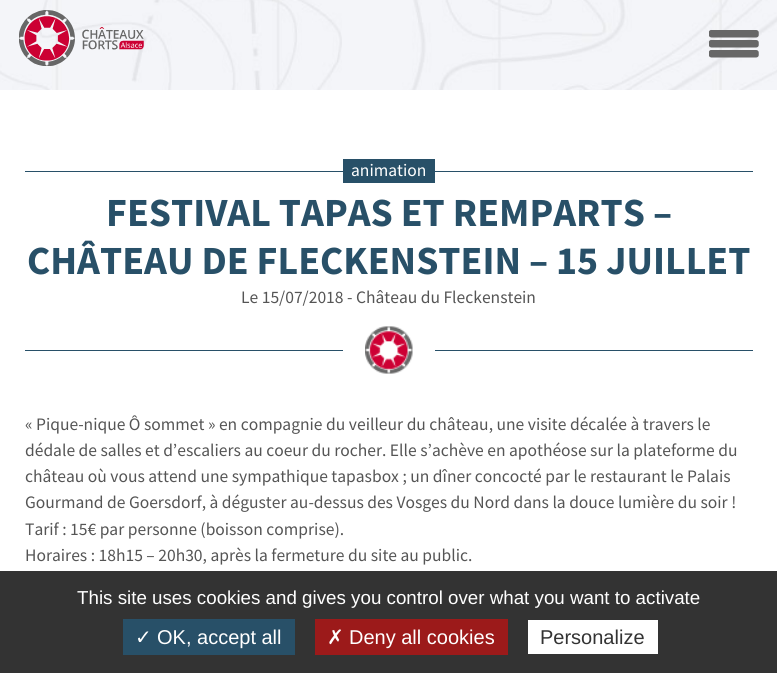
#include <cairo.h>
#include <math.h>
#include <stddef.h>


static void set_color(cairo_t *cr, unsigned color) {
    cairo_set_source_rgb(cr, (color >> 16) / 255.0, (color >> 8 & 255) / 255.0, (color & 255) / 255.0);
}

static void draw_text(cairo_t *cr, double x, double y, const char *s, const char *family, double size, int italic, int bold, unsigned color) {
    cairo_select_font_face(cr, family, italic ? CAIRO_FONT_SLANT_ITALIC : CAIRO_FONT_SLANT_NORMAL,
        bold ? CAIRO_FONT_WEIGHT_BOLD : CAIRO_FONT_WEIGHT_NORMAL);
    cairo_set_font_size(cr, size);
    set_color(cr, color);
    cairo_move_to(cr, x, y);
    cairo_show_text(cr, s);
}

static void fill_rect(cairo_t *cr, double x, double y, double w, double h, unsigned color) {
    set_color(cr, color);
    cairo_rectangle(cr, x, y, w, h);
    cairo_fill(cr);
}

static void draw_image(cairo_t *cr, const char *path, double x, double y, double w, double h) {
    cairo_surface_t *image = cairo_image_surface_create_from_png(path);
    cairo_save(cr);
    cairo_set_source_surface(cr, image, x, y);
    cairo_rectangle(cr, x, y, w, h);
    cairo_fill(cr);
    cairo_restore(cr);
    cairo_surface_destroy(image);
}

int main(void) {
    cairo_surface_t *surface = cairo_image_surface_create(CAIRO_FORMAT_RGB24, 777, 673);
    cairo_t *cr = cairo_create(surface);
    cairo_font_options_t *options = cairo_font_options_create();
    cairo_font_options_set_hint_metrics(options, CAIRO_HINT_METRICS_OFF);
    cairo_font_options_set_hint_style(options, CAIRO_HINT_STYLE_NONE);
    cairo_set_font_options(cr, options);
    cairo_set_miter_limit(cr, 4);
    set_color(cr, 0xFFFFFF);
    cairo_paint(cr);
    draw_image(cr, "assets/img1.png", 0, 0, 777, 90);
    draw_image(cr, "assets/img2.png", 19, 10, 125, 56);
    draw_image(cr, "assets/img3.png", 709, 30, 50, 28);
    fill_rect(cr, 25, 171, 728, 1, 0x285068);
    fill_rect(cr, 343, 159, 92, 24, 0x285068);
    draw_text(cr, 351, 176, "animation", "Source Sans Pro", 17.5, 0, 0, 0xFFFFFF);
    draw_text(cr, 106, 226, "FESTIVAL TAPAS ET REMPARTS –", "Source Sans Pro", 39.9, 0, 1, 0x285068);
    draw_text(cr, 27, 274, "CHÂTEAU DE FLECKENSTEIN – 15 JUILLET", "Source Sans Pro", 39.9, 0, 1, 0x285068);
    draw_text(cr, 241, 303, "Le 15/07/2018 - Château du Fleckenstein", "Source Sans Pro", 17.5, 0, 0, 0x555555);
    fill_rect(cr, 25, 350, 728, 1, 0x285068);
    fill_rect(cr, 343, 350, 92, 1, 0xFFFFFF);
    draw_image(cr, "assets/img4.png", 365, 326, 48, 48);
    draw_text(cr, 25, 430, "« Pique-nique Ô sommet » en compagnie du veilleur du château, une visite décalée à travers le", "Source Sans Pro", 17.5, 0, 0, 0x555555);
    draw_text(cr, 25, 456, "dédale de salles et d’escaliers au coeur du rocher. Elle s’achève en apothéose sur la plateforme du", "Source Sans Pro", 17.5, 0, 0, 0x555555);
    draw_text(cr, 25, 482, "château où vous attend une sympathique tapasbox ; un dîner concocté par le restaurant le Palais", "Source Sans Pro", 17.5, 0, 0, 0x555555);
    draw_text(cr, 25, 508, "Gourmand de Goersdorf, à déguster au-dessus des Vosges du Nord dans la douce lumière du soir !", "Source Sans Pro", 17.5, 0, 0, 0x555555);
    draw_text(cr, 25, 535, "Tarif : 15€ par personne (boisson comprise).", "Source Sans Pro", 17.5, 0, 0, 0x555555);
    draw_text(cr, 25, 561, "Horaires : 18h15 – 20h30, après la fermeture du site au public.", "Source Sans Pro", 17.5, 0, 0, 0x555555);
    fill_rect(cr, 0, 571, 777, 102, 0x333333);
    draw_text(cr, 77, 604, "This site uses cookies and gives you control over what you want to activate", "Liberation Sans", 18.75, 0, 0, 0xFFFFFF);
    fill_rect(cr, 123, 619, 172, 36, 0x285068);
    draw_text(cr, 135, 644, "✓", "DejaVu Sans", 20, 0, 0, 0xFFFFFF);
    draw_text(cr, 157, 644, "OK, accept all", "Liberation Sans", 20, 0, 0, 0xFFFFFF);
    fill_rect(cr, 315, 619, 193, 36, 0x9C1A1A);
    draw_text(cr, 327, 644, "✗", "DejaVu Sans", 20, 0, 0, 0xFFFFFF);
    draw_text(cr, 349, 644, "Deny all cookies", "Liberation Sans", 20, 0, 0, 0xFFFFFF);
    fill_rect(cr, 528, 620, 130, 34, 0xFFFFFF);
    draw_text(cr, 540, 644, "Personalize", "Liberation Sans", 20, 0, 0, 0x333333);
    cairo_surface_write_to_png(surface, "output.png");
    cairo_font_options_destroy(options);
    cairo_destroy(cr);
    cairo_surface_destroy(surface);
    return 0;
}
